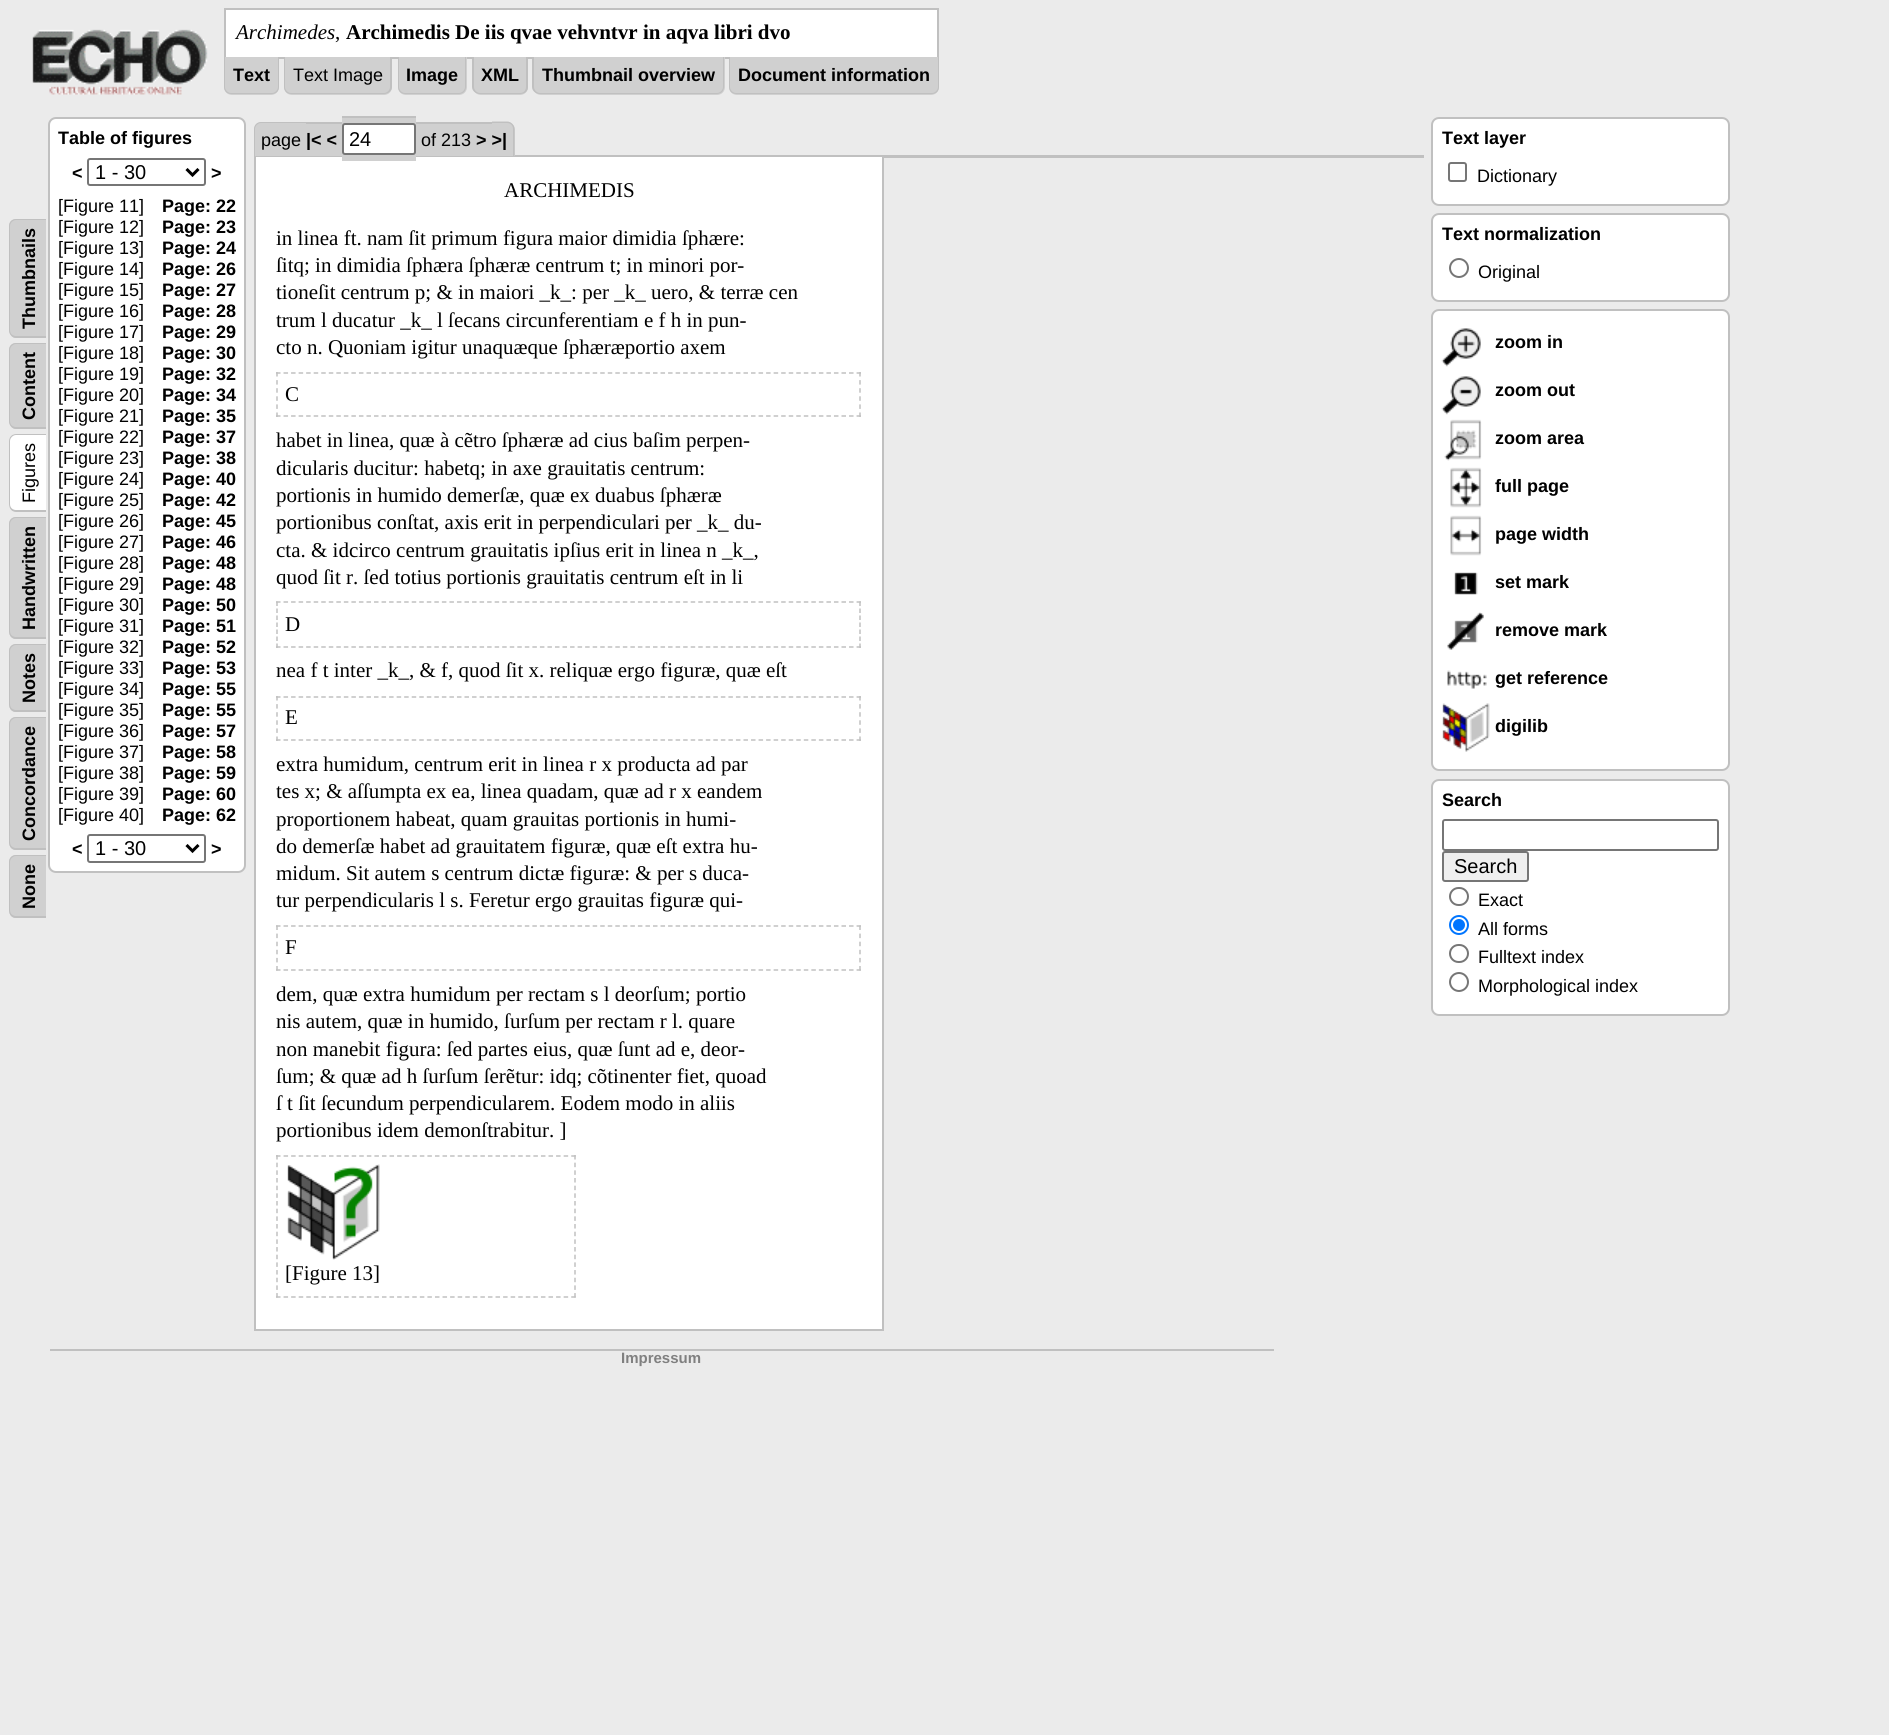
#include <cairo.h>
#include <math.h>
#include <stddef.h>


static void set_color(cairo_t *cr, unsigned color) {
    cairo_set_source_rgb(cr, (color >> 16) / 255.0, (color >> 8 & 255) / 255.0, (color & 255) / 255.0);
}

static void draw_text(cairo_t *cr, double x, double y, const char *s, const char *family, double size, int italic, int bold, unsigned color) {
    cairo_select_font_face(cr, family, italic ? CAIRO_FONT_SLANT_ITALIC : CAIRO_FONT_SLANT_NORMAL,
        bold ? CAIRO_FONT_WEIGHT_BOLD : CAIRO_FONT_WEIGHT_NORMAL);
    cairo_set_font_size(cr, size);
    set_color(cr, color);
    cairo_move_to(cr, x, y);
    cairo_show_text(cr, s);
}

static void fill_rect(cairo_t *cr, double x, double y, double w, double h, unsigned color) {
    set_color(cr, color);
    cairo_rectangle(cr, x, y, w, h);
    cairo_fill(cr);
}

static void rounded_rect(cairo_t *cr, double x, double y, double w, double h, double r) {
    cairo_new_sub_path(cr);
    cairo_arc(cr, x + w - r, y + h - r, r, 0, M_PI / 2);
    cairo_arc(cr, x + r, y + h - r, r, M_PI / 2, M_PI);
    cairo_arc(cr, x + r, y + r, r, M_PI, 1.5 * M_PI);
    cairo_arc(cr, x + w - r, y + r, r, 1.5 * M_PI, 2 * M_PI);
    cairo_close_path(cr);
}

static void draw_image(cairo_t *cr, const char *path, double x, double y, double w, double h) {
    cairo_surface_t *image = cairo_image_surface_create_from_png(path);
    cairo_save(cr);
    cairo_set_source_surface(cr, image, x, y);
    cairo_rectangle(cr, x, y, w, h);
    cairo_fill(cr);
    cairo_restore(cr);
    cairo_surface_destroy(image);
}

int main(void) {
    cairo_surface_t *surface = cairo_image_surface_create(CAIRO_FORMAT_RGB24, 1889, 1735);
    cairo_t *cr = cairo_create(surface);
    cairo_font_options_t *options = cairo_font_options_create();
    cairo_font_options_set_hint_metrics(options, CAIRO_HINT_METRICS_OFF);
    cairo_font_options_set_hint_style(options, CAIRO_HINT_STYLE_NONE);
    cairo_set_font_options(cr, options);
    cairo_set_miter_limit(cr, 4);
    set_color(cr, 0xEBEBEB);
    cairo_paint(cr);
    draw_image(cr, "assets/img1.png", 32, 29, 176, 66);
    set_color(cr, 0xFFFFFF);
    cairo_rectangle(cr, 225, 9, 713, 49);
    cairo_fill_preserve(cr);
    set_color(cr, 0xC0C0C0);
    cairo_stroke(cr);
    draw_text(cr, 236, 39, "Archimedes", "Liberation Serif", 21, 1, 0, 0x000000);
    draw_text(cr, 335, 39, ",", "Liberation Serif", 21, 0, 0, 0x000000);
    draw_text(cr, 346, 39, "Archimedis De iis qvae vehvntvr in aqva libri dvo", "Liberation Serif", 21, 0, 1, 0x000000);
    set_color(cr, 0xD0D0D0);
    cairo_new_path(cr);
    cairo_move_to(cr, 224, 57);
    cairo_line_to(cr, 279, 57);
    cairo_line_to(cr, 279, 87);
    cairo_curve_to(cr, 279, 91.5, 275.5, 95, 271, 95);
    cairo_line_to(cr, 232, 95);
    cairo_curve_to(cr, 227.5, 95, 224, 91.5, 224, 87);
    cairo_close_path(cr);
    cairo_fill(cr);
    set_color(cr, 0xC0C0C0);
    cairo_set_fill_rule(cr, CAIRO_FILL_RULE_EVEN_ODD);
    cairo_new_path(cr);
    cairo_move_to(cr, 224, 57);
    cairo_line_to(cr, 279, 57);
    cairo_line_to(cr, 279, 87);
    cairo_curve_to(cr, 279, 91, 276, 94, 272, 94);
    cairo_line_to(cr, 231, 94);
    cairo_curve_to(cr, 227, 94, 224, 91, 224, 87);
    cairo_close_path(cr);
    cairo_move_to(cr, 225, 57);
    cairo_line_to(cr, 278, 57);
    cairo_line_to(cr, 278, 87);
    cairo_curve_to(cr, 278, 90, 275, 93, 272, 93);
    cairo_line_to(cr, 231, 93);
    cairo_curve_to(cr, 228, 93, 225, 90, 225, 87);
    cairo_close_path(cr);
    cairo_fill(cr);
    draw_text(cr, 233, 81, "Text", "Liberation Sans", 18, 0, 1, 0x000000);
    set_color(cr, 0xD0D0D0);
    cairo_new_path(cr);
    cairo_move_to(cr, 284, 57);
    cairo_line_to(cr, 392, 57);
    cairo_line_to(cr, 392, 87);
    cairo_curve_to(cr, 392, 91.5, 388.5, 95, 384, 95);
    cairo_line_to(cr, 292, 95);
    cairo_curve_to(cr, 287.5, 95, 284, 91.5, 284, 87);
    cairo_close_path(cr);
    cairo_fill(cr);
    set_color(cr, 0xC0C0C0);
    cairo_new_path(cr);
    cairo_move_to(cr, 284, 57);
    cairo_line_to(cr, 392, 57);
    cairo_line_to(cr, 392, 87);
    cairo_curve_to(cr, 392, 91, 388, 94, 384, 94);
    cairo_line_to(cr, 291, 94);
    cairo_curve_to(cr, 287, 94, 284, 91, 284, 87);
    cairo_close_path(cr);
    cairo_move_to(cr, 285, 57);
    cairo_line_to(cr, 390, 57);
    cairo_line_to(cr, 390, 87);
    cairo_curve_to(cr, 390, 90, 387, 93, 384, 93);
    cairo_line_to(cr, 291, 93);
    cairo_curve_to(cr, 288, 93, 285, 90, 285, 87);
    cairo_close_path(cr);
    cairo_fill(cr);
    draw_text(cr, 293, 81, "Text Image", "Liberation Sans", 18, 0, 0, 0x000000);
    set_color(cr, 0xD0D0D0);
    cairo_new_path(cr);
    cairo_move_to(cr, 398, 57);
    cairo_line_to(cr, 467, 57);
    cairo_line_to(cr, 467, 87);
    cairo_curve_to(cr, 467, 91.5, 463.5, 95, 459, 95);
    cairo_line_to(cr, 406, 95);
    cairo_curve_to(cr, 401.5, 95, 398, 91.5, 398, 87);
    cairo_close_path(cr);
    cairo_fill(cr);
    set_color(cr, 0xC0C0C0);
    cairo_new_path(cr);
    cairo_move_to(cr, 398, 57);
    cairo_line_to(cr, 466, 57);
    cairo_line_to(cr, 466, 87);
    cairo_curve_to(cr, 466, 91, 463, 94, 459, 94);
    cairo_line_to(cr, 405, 94);
    cairo_curve_to(cr, 401, 94, 398, 91, 398, 87);
    cairo_close_path(cr);
    cairo_move_to(cr, 399, 57);
    cairo_line_to(cr, 465, 57);
    cairo_line_to(cr, 465, 87);
    cairo_curve_to(cr, 465, 90, 462, 93, 459, 93);
    cairo_line_to(cr, 405, 93);
    cairo_curve_to(cr, 402, 93, 399, 90, 399, 87);
    cairo_close_path(cr);
    cairo_fill(cr);
    draw_text(cr, 406, 81, "Image", "Liberation Sans", 18, 0, 1, 0x000000);
    set_color(cr, 0xD0D0D0);
    cairo_new_path(cr);
    cairo_move_to(cr, 473, 57);
    cairo_line_to(cr, 528, 57);
    cairo_line_to(cr, 528, 87);
    cairo_curve_to(cr, 528, 91.5, 524.5, 95, 520, 95);
    cairo_line_to(cr, 481, 95);
    cairo_curve_to(cr, 476.5, 95, 473, 91.5, 473, 87);
    cairo_close_path(cr);
    cairo_fill(cr);
    set_color(cr, 0xC0C0C0);
    cairo_new_path(cr);
    cairo_move_to(cr, 472, 57);
    cairo_line_to(cr, 528, 57);
    cairo_line_to(cr, 528, 87);
    cairo_curve_to(cr, 528, 91, 525, 94, 520, 94);
    cairo_line_to(cr, 480, 94);
    cairo_curve_to(cr, 476, 94, 472, 91, 472, 87);
    cairo_close_path(cr);
    cairo_move_to(cr, 474, 57);
    cairo_line_to(cr, 526, 57);
    cairo_line_to(cr, 526, 87);
    cairo_curve_to(cr, 526, 90, 524, 93, 520, 93);
    cairo_line_to(cr, 480, 93);
    cairo_curve_to(cr, 477, 93, 474, 90, 474, 87);
    cairo_close_path(cr);
    cairo_fill(cr);
    draw_text(cr, 481, 81, "XML", "Liberation Sans", 18, 0, 1, 0x000000);
    set_color(cr, 0xD0D0D0);
    cairo_new_path(cr);
    cairo_move_to(cr, 533, 57);
    cairo_line_to(cr, 725, 57);
    cairo_line_to(cr, 725, 87);
    cairo_curve_to(cr, 725, 91.5, 721.5, 95, 717, 95);
    cairo_line_to(cr, 541, 95);
    cairo_curve_to(cr, 536.5, 95, 533, 91.5, 533, 87);
    cairo_close_path(cr);
    cairo_fill(cr);
    set_color(cr, 0xC0C0C0);
    cairo_new_path(cr);
    cairo_move_to(cr, 532, 57);
    cairo_line_to(cr, 724, 57);
    cairo_line_to(cr, 724, 87);
    cairo_curve_to(cr, 724, 91, 721, 94, 717, 94);
    cairo_line_to(cr, 540, 94);
    cairo_curve_to(cr, 536, 94, 532, 91, 532, 87);
    cairo_close_path(cr);
    cairo_move_to(cr, 534, 57);
    cairo_line_to(cr, 723, 57);
    cairo_line_to(cr, 723, 87);
    cairo_curve_to(cr, 723, 90, 720, 93, 717, 93);
    cairo_line_to(cr, 540, 93);
    cairo_curve_to(cr, 537, 93, 534, 90, 534, 87);
    cairo_close_path(cr);
    cairo_fill(cr);
    draw_text(cr, 542, 81, "Thumbnail overview", "Liberation Sans", 18, 0, 1, 0x000000);
    set_color(cr, 0xD0D0D0);
    cairo_new_path(cr);
    cairo_move_to(cr, 729, 57);
    cairo_line_to(cr, 939, 57);
    cairo_line_to(cr, 939, 87);
    cairo_curve_to(cr, 939, 91.5, 935.5, 95, 931, 95);
    cairo_line_to(cr, 737, 95);
    cairo_curve_to(cr, 732.5, 95, 729, 91.5, 729, 87);
    cairo_close_path(cr);
    cairo_fill(cr);
    set_color(cr, 0xC0C0C0);
    cairo_new_path(cr);
    cairo_move_to(cr, 729, 57);
    cairo_line_to(cr, 939, 57);
    cairo_line_to(cr, 939, 87);
    cairo_curve_to(cr, 939, 91, 936, 94, 932, 94);
    cairo_line_to(cr, 736, 94);
    cairo_curve_to(cr, 732, 94, 729, 91, 729, 87);
    cairo_close_path(cr);
    cairo_move_to(cr, 730, 57);
    cairo_line_to(cr, 938, 57);
    cairo_line_to(cr, 938, 87);
    cairo_curve_to(cr, 938, 90, 935, 93, 932, 93);
    cairo_line_to(cr, 736, 93);
    cairo_curve_to(cr, 733, 93, 730, 90, 730, 87);
    cairo_close_path(cr);
    cairo_fill(cr);
    draw_text(cr, 738, 81, "Document information", "Liberation Sans", 18, 0, 1, 0x000000);
    set_color(cr, 0xD0D0D0);
    cairo_set_fill_rule(cr, CAIRO_FILL_RULE_WINDING);
    cairo_new_path(cr);
    cairo_move_to(cr, 9, 330);
    cairo_line_to(cr, 9, 226);
    cairo_curve_to(cr, 9, 222, 12, 219, 16, 219);
    cairo_line_to(cr, 46, 219);
    cairo_line_to(cr, 46, 338);
    cairo_line_to(cr, 16, 338);
    cairo_curve_to(cr, 12, 338, 9, 334, 9, 330);
    cairo_close_path(cr);
    cairo_fill(cr);
    set_color(cr, 0xC0C0C0);
    cairo_set_fill_rule(cr, CAIRO_FILL_RULE_EVEN_ODD);
    cairo_new_path(cr);
    cairo_move_to(cr, 9, 330);
    cairo_line_to(cr, 9, 226);
    cairo_curve_to(cr, 9, 222, 12, 219, 16, 219);
    cairo_line_to(cr, 46, 219);
    cairo_line_to(cr, 46, 338);
    cairo_line_to(cr, 16, 338);
    cairo_curve_to(cr, 12, 338, 9, 334, 9, 330);
    cairo_close_path(cr);
    cairo_move_to(cr, 10, 330);
    cairo_line_to(cr, 10, 226);
    cairo_curve_to(cr, 10, 223, 13, 220, 16, 220);
    cairo_line_to(cr, 46, 220);
    cairo_line_to(cr, 46, 336);
    cairo_line_to(cr, 16, 336);
    cairo_curve_to(cr, 13, 336, 10, 334, 10, 330);
    cairo_close_path(cr);
    cairo_fill(cr);
    cairo_save(cr);
    cairo_translate(cr, 35, 329);
    cairo_rotate(cr, -90 * M_PI / 180);
    draw_text(cr, 0, 0, "Thumbnails", "Liberation Sans", 18, 0, 1, 0x000000);
    cairo_restore(cr);
    set_color(cr, 0xD0D0D0);
    cairo_set_fill_rule(cr, CAIRO_FILL_RULE_WINDING);
    cairo_new_path(cr);
    cairo_move_to(cr, 9, 421);
    cairo_line_to(cr, 9, 350);
    cairo_curve_to(cr, 9, 346, 12, 343, 16, 343);
    cairo_line_to(cr, 46, 343);
    cairo_line_to(cr, 46, 429);
    cairo_line_to(cr, 16, 429);
    cairo_curve_to(cr, 12, 429, 9, 425, 9, 421);
    cairo_close_path(cr);
    cairo_fill(cr);
    set_color(cr, 0xC0C0C0);
    cairo_set_fill_rule(cr, CAIRO_FILL_RULE_EVEN_ODD);
    cairo_new_path(cr);
    cairo_move_to(cr, 9, 421);
    cairo_line_to(cr, 9, 350);
    cairo_curve_to(cr, 9, 346, 12, 343, 16, 343);
    cairo_line_to(cr, 46, 343);
    cairo_line_to(cr, 46, 429);
    cairo_line_to(cr, 16, 429);
    cairo_curve_to(cr, 12, 429, 9, 425, 9, 421);
    cairo_close_path(cr);
    cairo_move_to(cr, 10, 421);
    cairo_line_to(cr, 10, 350);
    cairo_curve_to(cr, 10, 347, 13, 344, 16, 344);
    cairo_line_to(cr, 46, 344);
    cairo_line_to(cr, 46, 427);
    cairo_line_to(cr, 16, 427);
    cairo_curve_to(cr, 13, 427, 10, 425, 10, 421);
    cairo_close_path(cr);
    cairo_fill(cr);
    cairo_save(cr);
    cairo_translate(cr, 35, 420);
    cairo_rotate(cr, -90 * M_PI / 180);
    draw_text(cr, 0, 0, "Content", "Liberation Sans", 18, 0, 1, 0x000000);
    cairo_restore(cr);
    set_color(cr, 0xFFFFFF);
    cairo_set_fill_rule(cr, CAIRO_FILL_RULE_WINDING);
    cairo_new_path(cr);
    cairo_move_to(cr, 9, 504);
    cairo_line_to(cr, 9, 441);
    cairo_curve_to(cr, 9, 437, 12, 434, 16, 434);
    cairo_line_to(cr, 46, 434);
    cairo_line_to(cr, 46, 512);
    cairo_line_to(cr, 16, 512);
    cairo_curve_to(cr, 12, 512, 9, 509, 9, 504);
    cairo_close_path(cr);
    cairo_fill(cr);
    set_color(cr, 0xC0C0C0);
    cairo_set_fill_rule(cr, CAIRO_FILL_RULE_EVEN_ODD);
    cairo_new_path(cr);
    cairo_move_to(cr, 9, 504);
    cairo_line_to(cr, 9, 441);
    cairo_curve_to(cr, 9, 437, 12, 434, 16, 434);
    cairo_line_to(cr, 46, 434);
    cairo_line_to(cr, 46, 512);
    cairo_line_to(cr, 16, 512);
    cairo_curve_to(cr, 12, 512, 9, 509, 9, 504);
    cairo_close_path(cr);
    cairo_move_to(cr, 10, 504);
    cairo_line_to(cr, 10, 441);
    cairo_curve_to(cr, 10, 438, 13, 435, 16, 435);
    cairo_line_to(cr, 46, 435);
    cairo_line_to(cr, 46, 510);
    cairo_line_to(cr, 16, 510);
    cairo_curve_to(cr, 13, 510, 10, 508, 10, 504);
    cairo_close_path(cr);
    cairo_fill(cr);
    cairo_save(cr);
    cairo_translate(cr, 35, 503);
    cairo_rotate(cr, -90 * M_PI / 180);
    draw_text(cr, 0, 0, "Figures", "Liberation Sans", 18, 0, 0, 0x000000);
    cairo_restore(cr);
    set_color(cr, 0xD0D0D0);
    cairo_set_fill_rule(cr, CAIRO_FILL_RULE_WINDING);
    cairo_new_path(cr);
    cairo_move_to(cr, 9, 631);
    cairo_line_to(cr, 9, 524);
    cairo_curve_to(cr, 9, 520, 12, 517, 16, 517);
    cairo_line_to(cr, 46, 517);
    cairo_line_to(cr, 46, 639);
    cairo_line_to(cr, 16, 639);
    cairo_curve_to(cr, 12, 639, 9, 636, 9, 631);
    cairo_close_path(cr);
    cairo_fill(cr);
    set_color(cr, 0xC0C0C0);
    cairo_set_fill_rule(cr, CAIRO_FILL_RULE_EVEN_ODD);
    cairo_new_path(cr);
    cairo_move_to(cr, 9, 631);
    cairo_line_to(cr, 9, 524);
    cairo_curve_to(cr, 9, 520, 12, 517, 16, 517);
    cairo_line_to(cr, 46, 517);
    cairo_line_to(cr, 46, 639);
    cairo_line_to(cr, 16, 639);
    cairo_curve_to(cr, 12, 639, 9, 636, 9, 631);
    cairo_close_path(cr);
    cairo_move_to(cr, 10, 631);
    cairo_line_to(cr, 10, 524);
    cairo_curve_to(cr, 10, 521, 13, 518, 16, 518);
    cairo_line_to(cr, 46, 518);
    cairo_line_to(cr, 46, 637);
    cairo_line_to(cr, 16, 637);
    cairo_curve_to(cr, 13, 637, 10, 635, 10, 631);
    cairo_close_path(cr);
    cairo_fill(cr);
    cairo_save(cr);
    cairo_translate(cr, 35, 630);
    cairo_rotate(cr, -90 * M_PI / 180);
    draw_text(cr, 0, 0, "Handwritten", "Liberation Sans", 18, 0, 1, 0x000000);
    cairo_restore(cr);
    set_color(cr, 0xD0D0D0);
    cairo_set_fill_rule(cr, CAIRO_FILL_RULE_WINDING);
    cairo_new_path(cr);
    cairo_move_to(cr, 9, 704);
    cairo_line_to(cr, 9, 651);
    cairo_curve_to(cr, 9, 647, 12, 644, 16, 644);
    cairo_line_to(cr, 46, 644);
    cairo_line_to(cr, 46, 712);
    cairo_line_to(cr, 16, 712);
    cairo_curve_to(cr, 12, 712, 9, 709, 9, 704);
    cairo_close_path(cr);
    cairo_fill(cr);
    set_color(cr, 0xC0C0C0);
    cairo_set_fill_rule(cr, CAIRO_FILL_RULE_EVEN_ODD);
    cairo_new_path(cr);
    cairo_move_to(cr, 9, 704);
    cairo_line_to(cr, 9, 651);
    cairo_curve_to(cr, 9, 647, 12, 644, 16, 644);
    cairo_line_to(cr, 46, 644);
    cairo_line_to(cr, 46, 712);
    cairo_line_to(cr, 16, 712);
    cairo_curve_to(cr, 12, 712, 9, 709, 9, 704);
    cairo_close_path(cr);
    cairo_move_to(cr, 10, 704);
    cairo_line_to(cr, 10, 651);
    cairo_curve_to(cr, 10, 648, 13, 645, 16, 645);
    cairo_line_to(cr, 46, 645);
    cairo_line_to(cr, 46, 710);
    cairo_line_to(cr, 16, 710);
    cairo_curve_to(cr, 13, 710, 10, 708, 10, 704);
    cairo_close_path(cr);
    cairo_fill(cr);
    cairo_save(cr);
    cairo_translate(cr, 35, 703);
    cairo_rotate(cr, -90 * M_PI / 180);
    draw_text(cr, 0, 0, "Notes", "Liberation Sans", 18, 0, 1, 0x000000);
    cairo_restore(cr);
    set_color(cr, 0xD0D0D0);
    cairo_set_fill_rule(cr, CAIRO_FILL_RULE_WINDING);
    cairo_new_path(cr);
    cairo_move_to(cr, 9, 842);
    cairo_line_to(cr, 9, 724);
    cairo_curve_to(cr, 9, 720, 12, 717, 16, 717);
    cairo_line_to(cr, 46, 717);
    cairo_line_to(cr, 46, 850);
    cairo_line_to(cr, 16, 850);
    cairo_curve_to(cr, 12, 850, 9, 847, 9, 842);
    cairo_close_path(cr);
    cairo_fill(cr);
    set_color(cr, 0xC0C0C0);
    cairo_set_fill_rule(cr, CAIRO_FILL_RULE_EVEN_ODD);
    cairo_new_path(cr);
    cairo_move_to(cr, 9, 842);
    cairo_line_to(cr, 9, 724);
    cairo_curve_to(cr, 9, 720, 12, 717, 16, 717);
    cairo_line_to(cr, 46, 717);
    cairo_line_to(cr, 46, 850);
    cairo_line_to(cr, 16, 850);
    cairo_curve_to(cr, 12, 850, 9, 847, 9, 842);
    cairo_close_path(cr);
    cairo_move_to(cr, 10, 842);
    cairo_line_to(cr, 10, 724);
    cairo_curve_to(cr, 10, 721, 13, 718, 16, 718);
    cairo_line_to(cr, 46, 718);
    cairo_line_to(cr, 46, 848);
    cairo_line_to(cr, 16, 848);
    cairo_curve_to(cr, 13, 848, 10, 846, 10, 842);
    cairo_close_path(cr);
    cairo_fill(cr);
    cairo_save(cr);
    cairo_translate(cr, 35, 841);
    cairo_rotate(cr, -90 * M_PI / 180);
    draw_text(cr, 0, 0, "Concordance", "Liberation Sans", 18, 0, 1, 0x000000);
    cairo_restore(cr);
    set_color(cr, 0xD0D0D0);
    cairo_set_fill_rule(cr, CAIRO_FILL_RULE_WINDING);
    cairo_new_path(cr);
    cairo_move_to(cr, 9, 910);
    cairo_line_to(cr, 9, 862);
    cairo_curve_to(cr, 9, 858, 12, 855, 16, 855);
    cairo_line_to(cr, 46, 855);
    cairo_line_to(cr, 46, 918);
    cairo_line_to(cr, 16, 918);
    cairo_curve_to(cr, 12, 918, 9, 915, 9, 910);
    cairo_close_path(cr);
    cairo_fill(cr);
    set_color(cr, 0xC0C0C0);
    cairo_set_fill_rule(cr, CAIRO_FILL_RULE_EVEN_ODD);
    cairo_new_path(cr);
    cairo_move_to(cr, 9, 910);
    cairo_line_to(cr, 9, 862);
    cairo_curve_to(cr, 9, 858, 12, 855, 16, 855);
    cairo_line_to(cr, 46, 855);
    cairo_line_to(cr, 46, 918);
    cairo_line_to(cr, 16, 918);
    cairo_curve_to(cr, 12, 918, 9, 915, 9, 910);
    cairo_close_path(cr);
    cairo_move_to(cr, 10, 910);
    cairo_line_to(cr, 10, 862);
    cairo_curve_to(cr, 10, 859, 13, 856, 16, 856);
    cairo_line_to(cr, 46, 856);
    cairo_line_to(cr, 46, 916);
    cairo_line_to(cr, 16, 916);
    cairo_curve_to(cr, 13, 916, 10, 914, 10, 910);
    cairo_close_path(cr);
    cairo_fill(cr);
    cairo_save(cr);
    cairo_translate(cr, 35, 909);
    cairo_rotate(cr, -90 * M_PI / 180);
    draw_text(cr, 0, 0, "None", "Liberation Sans", 18, 0, 1, 0x000000);
    cairo_restore(cr);
    set_color(cr, 0xFFFFFF);
    rounded_rect(cr, 49, 118, 196, 754, 7);
    cairo_fill_preserve(cr);
    set_color(cr, 0xC0C0C0);
    cairo_stroke(cr);
    draw_text(cr, 58, 144, "Table of figures", "Liberation Sans", 18, 0, 1, 0x000000);
    draw_text(cr, 72, 179, "<", "Liberation Sans", 18, 0, 1, 0x000000);
    rounded_rect(cr, 88, 159, 117, 26, 2);
    set_color(cr, 0x767676);
    cairo_stroke(cr);
    cairo_new_path(cr);
    cairo_move_to(cr, 186.5, 169);
    cairo_line_to(cr, 192.5, 175);
    cairo_line_to(cr, 198.5, 169);
    set_color(cr, 0x000000);
    cairo_set_line_width(cr, 3);
    cairo_stroke(cr);
    draw_text(cr, 95, 179, "1 - 30", "Liberation Sans", 20, 0, 0, 0x000000);
    draw_text(cr, 211, 179, ">", "Liberation Sans", 18, 0, 1, 0x000000);
    draw_text(cr, 58, 212, "[Figure 11]", "Liberation Sans", 18, 0, 0, 0x000000);
    draw_text(cr, 162, 212, "Page: 22", "Liberation Sans", 18, 0, 1, 0x000000);
    draw_text(cr, 58, 233, "[Figure 12]", "Liberation Sans", 18, 0, 0, 0x000000);
    draw_text(cr, 162, 233, "Page: 23", "Liberation Sans", 18, 0, 1, 0x000000);
    draw_text(cr, 58, 254, "[Figure 13]", "Liberation Sans", 18, 0, 0, 0x000000);
    draw_text(cr, 162, 254, "Page: 24", "Liberation Sans", 18, 0, 1, 0x000000);
    draw_text(cr, 58, 275, "[Figure 14]", "Liberation Sans", 18, 0, 0, 0x000000);
    draw_text(cr, 162, 275, "Page: 26", "Liberation Sans", 18, 0, 1, 0x000000);
    draw_text(cr, 58, 296, "[Figure 15]", "Liberation Sans", 18, 0, 0, 0x000000);
    draw_text(cr, 162, 296, "Page: 27", "Liberation Sans", 18, 0, 1, 0x000000);
    draw_text(cr, 58, 317, "[Figure 16]", "Liberation Sans", 18, 0, 0, 0x000000);
    draw_text(cr, 162, 317, "Page: 28", "Liberation Sans", 18, 0, 1, 0x000000);
    draw_text(cr, 58, 338, "[Figure 17]", "Liberation Sans", 18, 0, 0, 0x000000);
    draw_text(cr, 162, 338, "Page: 29", "Liberation Sans", 18, 0, 1, 0x000000);
    draw_text(cr, 58, 359, "[Figure 18]", "Liberation Sans", 18, 0, 0, 0x000000);
    draw_text(cr, 162, 359, "Page: 30", "Liberation Sans", 18, 0, 1, 0x000000);
    draw_text(cr, 58, 380, "[Figure 19]", "Liberation Sans", 18, 0, 0, 0x000000);
    draw_text(cr, 162, 380, "Page: 32", "Liberation Sans", 18, 0, 1, 0x000000);
    draw_text(cr, 58, 401, "[Figure 20]", "Liberation Sans", 18, 0, 0, 0x000000);
    draw_text(cr, 162, 401, "Page: 34", "Liberation Sans", 18, 0, 1, 0x000000);
    draw_text(cr, 58, 422, "[Figure 21]", "Liberation Sans", 18, 0, 0, 0x000000);
    draw_text(cr, 162, 422, "Page: 35", "Liberation Sans", 18, 0, 1, 0x000000);
    draw_text(cr, 58, 443, "[Figure 22]", "Liberation Sans", 18, 0, 0, 0x000000);
    draw_text(cr, 162, 443, "Page: 37", "Liberation Sans", 18, 0, 1, 0x000000);
    draw_text(cr, 58, 464, "[Figure 23]", "Liberation Sans", 18, 0, 0, 0x000000);
    draw_text(cr, 162, 464, "Page: 38", "Liberation Sans", 18, 0, 1, 0x000000);
    draw_text(cr, 58, 485, "[Figure 24]", "Liberation Sans", 18, 0, 0, 0x000000);
    draw_text(cr, 162, 485, "Page: 40", "Liberation Sans", 18, 0, 1, 0x000000);
    draw_text(cr, 58, 506, "[Figure 25]", "Liberation Sans", 18, 0, 0, 0x000000);
    draw_text(cr, 162, 506, "Page: 42", "Liberation Sans", 18, 0, 1, 0x000000);
    draw_text(cr, 58, 527, "[Figure 26]", "Liberation Sans", 18, 0, 0, 0x000000);
    draw_text(cr, 162, 527, "Page: 45", "Liberation Sans", 18, 0, 1, 0x000000);
    draw_text(cr, 58, 548, "[Figure 27]", "Liberation Sans", 18, 0, 0, 0x000000);
    draw_text(cr, 162, 548, "Page: 46", "Liberation Sans", 18, 0, 1, 0x000000);
    draw_text(cr, 58, 569, "[Figure 28]", "Liberation Sans", 18, 0, 0, 0x000000);
    draw_text(cr, 162, 569, "Page: 48", "Liberation Sans", 18, 0, 1, 0x000000);
    draw_text(cr, 58, 590, "[Figure 29]", "Liberation Sans", 18, 0, 0, 0x000000);
    draw_text(cr, 162, 590, "Page: 48", "Liberation Sans", 18, 0, 1, 0x000000);
    draw_text(cr, 58, 611, "[Figure 30]", "Liberation Sans", 18, 0, 0, 0x000000);
    draw_text(cr, 162, 611, "Page: 50", "Liberation Sans", 18, 0, 1, 0x000000);
    draw_text(cr, 58, 632, "[Figure 31]", "Liberation Sans", 18, 0, 0, 0x000000);
    draw_text(cr, 162, 632, "Page: 51", "Liberation Sans", 18, 0, 1, 0x000000);
    draw_text(cr, 58, 653, "[Figure 32]", "Liberation Sans", 18, 0, 0, 0x000000);
    draw_text(cr, 162, 653, "Page: 52", "Liberation Sans", 18, 0, 1, 0x000000);
    draw_text(cr, 58, 674, "[Figure 33]", "Liberation Sans", 18, 0, 0, 0x000000);
    draw_text(cr, 162, 674, "Page: 53", "Liberation Sans", 18, 0, 1, 0x000000);
    draw_text(cr, 58, 695, "[Figure 34]", "Liberation Sans", 18, 0, 0, 0x000000);
    draw_text(cr, 162, 695, "Page: 55", "Liberation Sans", 18, 0, 1, 0x000000);
    draw_text(cr, 58, 716, "[Figure 35]", "Liberation Sans", 18, 0, 0, 0x000000);
    draw_text(cr, 162, 716, "Page: 55", "Liberation Sans", 18, 0, 1, 0x000000);
    draw_text(cr, 58, 737, "[Figure 36]", "Liberation Sans", 18, 0, 0, 0x000000);
    draw_text(cr, 162, 737, "Page: 57", "Liberation Sans", 18, 0, 1, 0x000000);
    draw_text(cr, 58, 758, "[Figure 37]", "Liberation Sans", 18, 0, 0, 0x000000);
    draw_text(cr, 162, 758, "Page: 58", "Liberation Sans", 18, 0, 1, 0x000000);
    draw_text(cr, 58, 779, "[Figure 38]", "Liberation Sans", 18, 0, 0, 0x000000);
    draw_text(cr, 162, 779, "Page: 59", "Liberation Sans", 18, 0, 1, 0x000000);
    draw_text(cr, 58, 800, "[Figure 39]", "Liberation Sans", 18, 0, 0, 0x000000);
    draw_text(cr, 162, 800, "Page: 60", "Liberation Sans", 18, 0, 1, 0x000000);
    draw_text(cr, 58, 821, "[Figure 40]", "Liberation Sans", 18, 0, 0, 0x000000);
    draw_text(cr, 162, 821, "Page: 62", "Liberation Sans", 18, 0, 1, 0x000000);
    draw_text(cr, 72, 855, "<", "Liberation Sans", 18, 0, 1, 0x000000);
    rounded_rect(cr, 88, 835, 117, 27, 2);
    set_color(cr, 0x767676);
    cairo_set_line_width(cr, 2);
    cairo_stroke(cr);
    cairo_new_path(cr);
    cairo_move_to(cr, 186.5, 845);
    cairo_line_to(cr, 192.5, 851);
    cairo_line_to(cr, 198.5, 845);
    set_color(cr, 0x000000);
    cairo_set_line_width(cr, 3);
    cairo_stroke(cr);
    draw_text(cr, 95, 855, "1 - 30", "Liberation Sans", 20, 0, 0, 0x000000);
    draw_text(cr, 211, 855, ">", "Liberation Sans", 18, 0, 1, 0x000000);
    set_color(cr, 0xFFFFFF);
    cairo_rectangle(cr, 255, 156, 628, 1174);
    cairo_fill_preserve(cr);
    set_color(cr, 0xC0C0C0);
    cairo_set_line_width(cr, 2);
    cairo_stroke(cr);
    set_color(cr, 0xD0D0D0);
    cairo_new_path(cr);
    cairo_move_to(cr, 262, 122);
    cairo_line_to(cr, 306, 122);
    cairo_line_to(cr, 306, 156);
    cairo_line_to(cr, 254, 156);
    cairo_line_to(cr, 254, 130);
    cairo_curve_to(cr, 254, 125.5, 257.5, 122, 262, 122);
    cairo_close_path(cr);
    cairo_fill(cr);
    set_color(cr, 0xC0C0C0);
    cairo_new_path(cr);
    cairo_move_to(cr, 261, 122);
    cairo_line_to(cr, 306, 122);
    cairo_line_to(cr, 306, 156);
    cairo_line_to(cr, 254, 156);
    cairo_line_to(cr, 254, 129);
    cairo_curve_to(cr, 254, 125, 257, 122, 261, 122);
    cairo_close_path(cr);
    cairo_move_to(cr, 261, 123);
    cairo_line_to(cr, 306, 123);
    cairo_line_to(cr, 306, 156);
    cairo_line_to(cr, 255, 156);
    cairo_line_to(cr, 255, 129);
    cairo_curve_to(cr, 255, 126, 258, 123, 261, 123);
    cairo_close_path(cr);
    cairo_fill(cr);
    fill_rect(cr, 306, 124, 17, 32, 0xD0D0D0);
    fill_rect(cr, 306, 122, 17, 2, 0xC0C0C0);
    fill_rect(cr, 323, 122, 4, 34, 0xD0D0D0);
    fill_rect(cr, 323, 122, 15, 2, 0xC0C0C0);
    fill_rect(cr, 327, 124, 11, 32, 0xD0D0D0);
    fill_rect(cr, 338, 122, 4, 34, 0xD0D0D0);
    fill_rect(cr, 338, 122, 5, 2, 0xC0C0C0);
    fill_rect(cr, 342, 118, 74, 43, 0xD0D0D0);
    fill_rect(cr, 342, 116, 74, 2, 0xC0C0C0);
    fill_rect(cr, 416, 122, 6, 34, 0xD0D0D0);
    fill_rect(cr, 416, 122, 70, 2, 0xC0C0C0);
    fill_rect(cr, 422, 124, 64, 32, 0xD0D0D0);
    fill_rect(cr, 486, 122, 6, 34, 0xD0D0D0);
    fill_rect(cr, 486, 122, 6, 2, 0xC0C0C0);
    set_color(cr, 0xD0D0D0);
    cairo_new_path(cr);
    cairo_move_to(cr, 492, 122);
    cairo_line_to(cr, 507, 122);
    cairo_curve_to(cr, 511.5, 122, 515, 125.5, 515, 130);
    cairo_line_to(cr, 515, 156);
    cairo_line_to(cr, 492, 156);
    cairo_close_path(cr);
    cairo_fill(cr);
    set_color(cr, 0xC0C0C0);
    cairo_new_path(cr);
    cairo_move_to(cr, 492, 121.5);
    cairo_line_to(cr, 507, 121.5);
    cairo_curve_to(cr, 511, 121.5, 514.5, 125, 514.5, 129);
    cairo_line_to(cr, 514.5, 156);
    cairo_line_to(cr, 492, 156);
    cairo_close_path(cr);
    cairo_move_to(cr, 492, 123);
    cairo_line_to(cr, 507, 123);
    cairo_curve_to(cr, 510.5, 123, 513, 125.5, 513, 129);
    cairo_line_to(cr, 513, 156);
    cairo_line_to(cr, 492, 156);
    cairo_close_path(cr);
    cairo_fill(cr);
    draw_text(cr, 261, 146, "page", "Liberation Sans", 18, 0, 0, 0x000000);
    draw_text(cr, 306, 146, "|< <", "Liberation Sans", 18, 0, 1, 0x000000);
    set_color(cr, 0xFFFFFF);
    rounded_rect(cr, 343, 124, 72, 30, 2);
    cairo_fill_preserve(cr);
    set_color(cr, 0x767676);
    cairo_stroke(cr);
    draw_text(cr, 349, 146, "24", "Liberation Sans", 20, 0, 0, 0x000000);
    draw_text(cr, 421, 146, "of 213", "Liberation Sans", 18, 0, 0, 0x000000);
    draw_text(cr, 476, 146, "> >|", "Liberation Sans", 18, 0, 1, 0x000000);
    fill_rect(cr, 884, 155, 540, 3, 0xC0C0C0);
    draw_text(cr, 504, 197, "ARCHIMEDIS", "Liberation Serif", 21, 0, 0, 0x000000);
    draw_text(cr, 276, 245, "in linea ft. nam ſit primum figura maior dimidia ſphære:", "Liberation Serif", 21, 0, 0, 0x000000);
    draw_text(cr, 276, 272, "ſitq; in dimidia ſphæra ſphæræ centrum t; in minori por-", "Liberation Serif", 21, 0, 0, 0x000000);
    draw_text(cr, 276, 299, "tioneſit centrum p; & in maiori _k_: per _k_ uero, & terræ cen", "Liberation Serif", 21, 0, 0, 0x000000);
    draw_text(cr, 276, 327, "trum l ducatur _k_ l ſecans circunferentiam e f h in pun-", "Liberation Serif", 21, 0, 0, 0x000000);
    draw_text(cr, 276, 354, "cto n. Quoniam igitur unaquæque ſphæræportio axem", "Liberation Serif", 21, 0, 0, 0x000000);
    cairo_new_path(cr);
    cairo_move_to(cr, 276, 373);
    cairo_line_to(cr, 861, 373);
    set_color(cr, 0xC0C0C0);
    cairo_set_line_width(cr, 1.5);
    cairo_set_dash(cr, (double[]){4.5, 3.04}, 2, 0);
    cairo_stroke(cr);
    cairo_new_path(cr);
    cairo_move_to(cr, 860, 372);
    cairo_line_to(cr, 860, 417);
    cairo_set_dash(cr, (double[]){4.5, 3.6}, 2, 0);
    cairo_stroke(cr);
    cairo_new_path(cr);
    cairo_move_to(cr, 276, 416);
    cairo_line_to(cr, 861, 416);
    cairo_set_dash(cr, (double[]){4.5, 3.04}, 2, 0);
    cairo_stroke(cr);
    cairo_new_path(cr);
    cairo_move_to(cr, 277, 372);
    cairo_line_to(cr, 277, 417);
    cairo_set_dash(cr, (double[]){4.5, 3.6}, 2, 0);
    cairo_stroke(cr);
    draw_text(cr, 285, 401, "C", "Liberation Serif", 21, 0, 0, 0x000000);
    draw_text(cr, 276, 447, "habet in linea, quæ à cẽtro ſphæræ ad cius baſim perpen-", "Liberation Serif", 21, 0, 0, 0x000000);
    draw_text(cr, 276, 475, "dicularis ducitur: habetq; in axe grauitatis centrum:", "Liberation Serif", 21, 0, 0, 0x000000);
    draw_text(cr, 276, 502, "portionis in humido demerſæ, quæ ex duabus ſphæræ", "Liberation Serif", 21, 0, 0, 0x000000);
    draw_text(cr, 276, 529, "portionibus conſtat, axis erit in perpendiculari per _k_ du-", "Liberation Serif", 21, 0, 0, 0x000000);
    draw_text(cr, 276, 557, "cta. & idcirco centrum grauitatis ipſius erit in linea n _k_,", "Liberation Serif", 21, 0, 0, 0x000000);
    draw_text(cr, 276, 584, "quod ſit r. ſed totius portionis grauitatis centrum eſt in li", "Liberation Serif", 21, 0, 0, 0x000000);
    cairo_new_path(cr);
    cairo_move_to(cr, 276, 602);
    cairo_line_to(cr, 861, 602);
    set_color(cr, 0xC0C0C0);
    cairo_set_dash(cr, (double[]){4.5, 3.04}, 2, 0);
    cairo_stroke(cr);
    cairo_new_path(cr);
    cairo_move_to(cr, 860, 601.5);
    cairo_line_to(cr, 860, 648);
    cairo_set_dash(cr, (double[]){4.5, 2.5}, 2, 0);
    cairo_stroke(cr);
    cairo_new_path(cr);
    cairo_move_to(cr, 276, 647);
    cairo_line_to(cr, 861, 647);
    cairo_set_dash(cr, (double[]){4.5, 3.04}, 2, 0);
    cairo_stroke(cr);
    cairo_new_path(cr);
    cairo_move_to(cr, 277, 601.5);
    cairo_line_to(cr, 277, 648);
    cairo_set_dash(cr, (double[]){4.5, 2.5}, 2, 0);
    cairo_stroke(cr);
    draw_text(cr, 285, 631, "D", "Liberation Serif", 21, 0, 0, 0x000000);
    draw_text(cr, 276, 677, "nea f t inter _k_, & f, quod ſit x. reliquæ ergo figuræ, quæ eſt", "Liberation Serif", 21, 0, 0, 0x000000);
    cairo_new_path(cr);
    cairo_move_to(cr, 276, 697);
    cairo_line_to(cr, 861, 697);
    set_color(cr, 0xC0C0C0);
    cairo_set_dash(cr, (double[]){4.5, 3.04}, 2, 0);
    cairo_stroke(cr);
    cairo_new_path(cr);
    cairo_move_to(cr, 860, 696);
    cairo_line_to(cr, 860, 741);
    cairo_set_dash(cr, (double[]){4.5, 3.6}, 2, 0);
    cairo_stroke(cr);
    cairo_new_path(cr);
    cairo_move_to(cr, 276, 740);
    cairo_line_to(cr, 861, 740);
    cairo_set_dash(cr, (double[]){4.5, 3.04}, 2, 0);
    cairo_stroke(cr);
    cairo_new_path(cr);
    cairo_move_to(cr, 277, 696);
    cairo_line_to(cr, 277, 741);
    cairo_set_dash(cr, (double[]){4.5, 3.6}, 2, 0);
    cairo_stroke(cr);
    draw_text(cr, 285, 724, "E", "Liberation Serif", 21, 0, 0, 0x000000);
    draw_text(cr, 276, 771, "extra humidum, centrum erit in linea r x producta ad par", "Liberation Serif", 21, 0, 0, 0x000000);
    draw_text(cr, 276, 798, "tes x; & aſſumpta ex ea, linea quadam, quæ ad r x eandem", "Liberation Serif", 21, 0, 0, 0x000000);
    draw_text(cr, 276, 826, "proportionem habeat, quam grauitas portionis in humi-", "Liberation Serif", 21, 0, 0, 0x000000);
    draw_text(cr, 276, 853, "do demerſæ habet ad grauitatem figuræ, quæ eſt extra hu-", "Liberation Serif", 21, 0, 0, 0x000000);
    draw_text(cr, 276, 880, "midum. Sit autem s centrum dictæ figuræ: & per s duca-", "Liberation Serif", 21, 0, 0, 0x000000);
    draw_text(cr, 276, 907, "tur perpendicularis l s. Feretur ergo grauitas figuræ qui-", "Liberation Serif", 21, 0, 0, 0x000000);
    cairo_new_path(cr);
    cairo_move_to(cr, 276, 926);
    cairo_line_to(cr, 861, 926);
    set_color(cr, 0xC0C0C0);
    cairo_set_dash(cr, (double[]){4.5, 3.04}, 2, 0);
    cairo_stroke(cr);
    cairo_new_path(cr);
    cairo_move_to(cr, 860, 925.5);
    cairo_line_to(cr, 860, 970.5);
    cairo_set_dash(cr, (double[]){4.5, 3.6}, 2, 0);
    cairo_stroke(cr);
    cairo_new_path(cr);
    cairo_move_to(cr, 276, 970);
    cairo_line_to(cr, 861, 970);
    cairo_set_dash(cr, (double[]){4.5, 3.04}, 2, 0);
    cairo_stroke(cr);
    cairo_new_path(cr);
    cairo_move_to(cr, 277, 925.5);
    cairo_line_to(cr, 277, 970.5);
    cairo_set_dash(cr, (double[]){4.5, 3.6}, 2, 0);
    cairo_stroke(cr);
    draw_text(cr, 285, 954, "F", "Liberation Serif", 21, 0, 0, 0x000000);
    draw_text(cr, 276, 1001, "dem, quæ extra humidum per rectam s l deorſum; portio", "Liberation Serif", 21, 0, 0, 0x000000);
    draw_text(cr, 276, 1028, "nis autem, quæ in humido, ſurſum per rectam r l. quare", "Liberation Serif", 21, 0, 0, 0x000000);
    draw_text(cr, 276, 1056, "non manebit figura: ſed partes eius, quæ ſunt ad e, deor-", "Liberation Serif", 21, 0, 0, 0x000000);
    draw_text(cr, 276, 1083, "ſum; & quæ ad h ſurſum ſerẽtur: idq; cõtinenter fiet, quoad", "Liberation Serif", 21, 0, 0, 0x000000);
    draw_text(cr, 276, 1110, "ſ t ſit ſecundum perpendicularem. Eodem modo in aliis", "Liberation Serif", 21, 0, 0, 0x000000);
    draw_text(cr, 276, 1137, "portionibus idem demonſtrabitur. ]", "Liberation Serif", 21, 0, 0, 0x000000);
    cairo_new_path(cr);
    cairo_move_to(cr, 276, 1156);
    cairo_line_to(cr, 576, 1156);
    set_color(cr, 0xC0C0C0);
    cairo_set_dash(cr, (double[]){4.5, 3.07}, 2, 0);
    cairo_stroke(cr);
    cairo_new_path(cr);
    cairo_move_to(cr, 575, 1155);
    cairo_line_to(cr, 575, 1297.5);
    cairo_set_dash(cr, (double[]){4.5, 3.17}, 2, 0);
    cairo_stroke(cr);
    cairo_new_path(cr);
    cairo_move_to(cr, 276, 1297);
    cairo_line_to(cr, 576, 1297);
    cairo_set_dash(cr, (double[]){4.5, 3.07}, 2, 0);
    cairo_stroke(cr);
    cairo_new_path(cr);
    cairo_move_to(cr, 277, 1155);
    cairo_line_to(cr, 277, 1297.5);
    cairo_set_dash(cr, (double[]){4.5, 3.17}, 2, 0);
    cairo_stroke(cr);
    draw_image(cr, "assets/img2.png", 287, 1164, 93, 96);
    draw_text(cr, 285, 1280, "[Figure 13]", "Liberation Serif", 21, 0, 0, 0x000000);
    set_color(cr, 0xFFFFFF);
    rounded_rect(cr, 1432, 118, 297, 87, 7);
    cairo_fill_preserve(cr);
    set_color(cr, 0xC0C0C0);
    cairo_set_line_width(cr, 2);
    cairo_set_dash(cr, NULL, 0, 0);
    cairo_stroke(cr);
    draw_text(cr, 1442, 144, "Text layer", "Liberation Sans", 18, 0, 1, 0x000000);
    rounded_rect(cr, 1449, 163, 17, 18, 2);
    set_color(cr, 0x767676);
    cairo_stroke(cr);
    draw_text(cr, 1477, 182, "Dictionary", "Liberation Sans", 18, 0, 0, 0x000000);
    set_color(cr, 0xFFFFFF);
    rounded_rect(cr, 1432, 214, 297, 87, 7);
    cairo_fill_preserve(cr);
    set_color(cr, 0xC0C0C0);
    cairo_stroke(cr);
    draw_text(cr, 1442, 240, "Text normalization", "Liberation Sans", 18, 0, 1, 0x000000);
    cairo_new_path(cr);
    cairo_arc(cr, 1459, 268, 9, 0, 2 * M_PI);
    set_color(cr, 0x767676);
    cairo_stroke(cr);
    draw_text(cr, 1478, 278, "Original", "Liberation Sans", 18, 0, 0, 0x000000);
    set_color(cr, 0xFFFFFF);
    rounded_rect(cr, 1432, 310, 297, 460, 7);
    cairo_fill_preserve(cr);
    set_color(cr, 0xC0C0C0);
    cairo_stroke(cr);
    draw_image(cr, "assets/img3.png", 1441, 328, 40, 39);
    draw_text(cr, 1495, 348, "zoom in", "Liberation Sans", 18, 0, 1, 0x000000);
    draw_image(cr, "assets/img4.png", 1441, 376, 40, 39);
    draw_text(cr, 1495, 396, "zoom out", "Liberation Sans", 18, 0, 1, 0x000000);
    draw_image(cr, "assets/img5.png", 1444, 419, 38, 42);
    draw_text(cr, 1495, 444, "zoom area", "Liberation Sans", 18, 0, 1, 0x000000);
    draw_image(cr, "assets/img6.png", 1450, 467, 32, 41);
    draw_text(cr, 1495, 492, "full page", "Liberation Sans", 18, 0, 1, 0x000000);
    draw_image(cr, "assets/img7.png", 1450, 515, 32, 41);
    draw_text(cr, 1495, 540, "page width", "Liberation Sans", 18, 0, 1, 0x000000);
    draw_image(cr, "assets/img8.png", 1454, 572, 24, 23);
    draw_text(cr, 1495, 588, "set mark", "Liberation Sans", 18, 0, 1, 0x000000);
    draw_image(cr, "assets/img9.png", 1447, 612, 37, 38);
    draw_text(cr, 1495, 636, "remove mark", "Liberation Sans", 18, 0, 1, 0x000000);
    draw_image(cr, "assets/img10.png", 1447, 670, 40, 19);
    draw_text(cr, 1495, 684, "get reference", "Liberation Sans", 18, 0, 1, 0x000000);
    draw_image(cr, "assets/img11.png", 1442, 703, 48, 49);
    draw_text(cr, 1495, 732, "digilib", "Liberation Sans", 18, 0, 1, 0x000000);
    set_color(cr, 0xFFFFFF);
    rounded_rect(cr, 1432, 780, 297, 235, 7);
    cairo_fill_preserve(cr);
    set_color(cr, 0xC0C0C0);
    cairo_stroke(cr);
    draw_text(cr, 1442, 806, "Search", "Liberation Sans", 18, 0, 1, 0x000000);
    rounded_rect(cr, 1443, 820, 275, 30, 2);
    set_color(cr, 0x767676);
    cairo_stroke(cr);
    set_color(cr, 0xEFEFEF);
    rounded_rect(cr, 1443, 852, 85, 29, 2);
    cairo_fill_preserve(cr);
    set_color(cr, 0x767676);
    cairo_stroke(cr);
    draw_text(cr, 1454, 873, "Search", "Liberation Sans", 20, 0, 0, 0x000000);
    rounded_rect(cr, 1450, 888, 18, 17, 8.5);
    set_color(cr, 0x767676);
    cairo_stroke(cr);
    draw_text(cr, 1478, 906, "Exact", "Liberation Sans", 18, 0, 0, 0x000000);
    cairo_new_path(cr);
    cairo_arc(cr, 1459, 925, 9, 0, 2 * M_PI);
    set_color(cr, 0x0075FF);
    cairo_stroke(cr);
    cairo_arc(cr, 1459, 925, 6, 0, 2 * M_PI);
    cairo_fill(cr);
    draw_text(cr, 1478, 935, "All forms", "Liberation Sans", 18, 0, 0, 0x000000);
    rounded_rect(cr, 1450, 945, 18, 17, 8.5);
    set_color(cr, 0x767676);
    cairo_stroke(cr);
    draw_text(cr, 1478, 963, "Fulltext index", "Liberation Sans", 18, 0, 0, 0x000000);
    cairo_new_path(cr);
    cairo_arc(cr, 1459, 982, 9, 0, 2 * M_PI);
    set_color(cr, 0x767676);
    cairo_stroke(cr);
    draw_text(cr, 1478, 992, "Morphological index", "Liberation Sans", 18, 0, 0, 0x000000);
    fill_rect(cr, 50, 1349, 1224, 2, 0xC0C0C0);
    draw_text(cr, 621, 1363, "Impressum", "Liberation Sans", 15, 0, 1, 0x808080);
    cairo_surface_write_to_png(surface, "output.png");
    cairo_font_options_destroy(options);
    cairo_destroy(cr);
    cairo_surface_destroy(surface);
    return 0;
}
